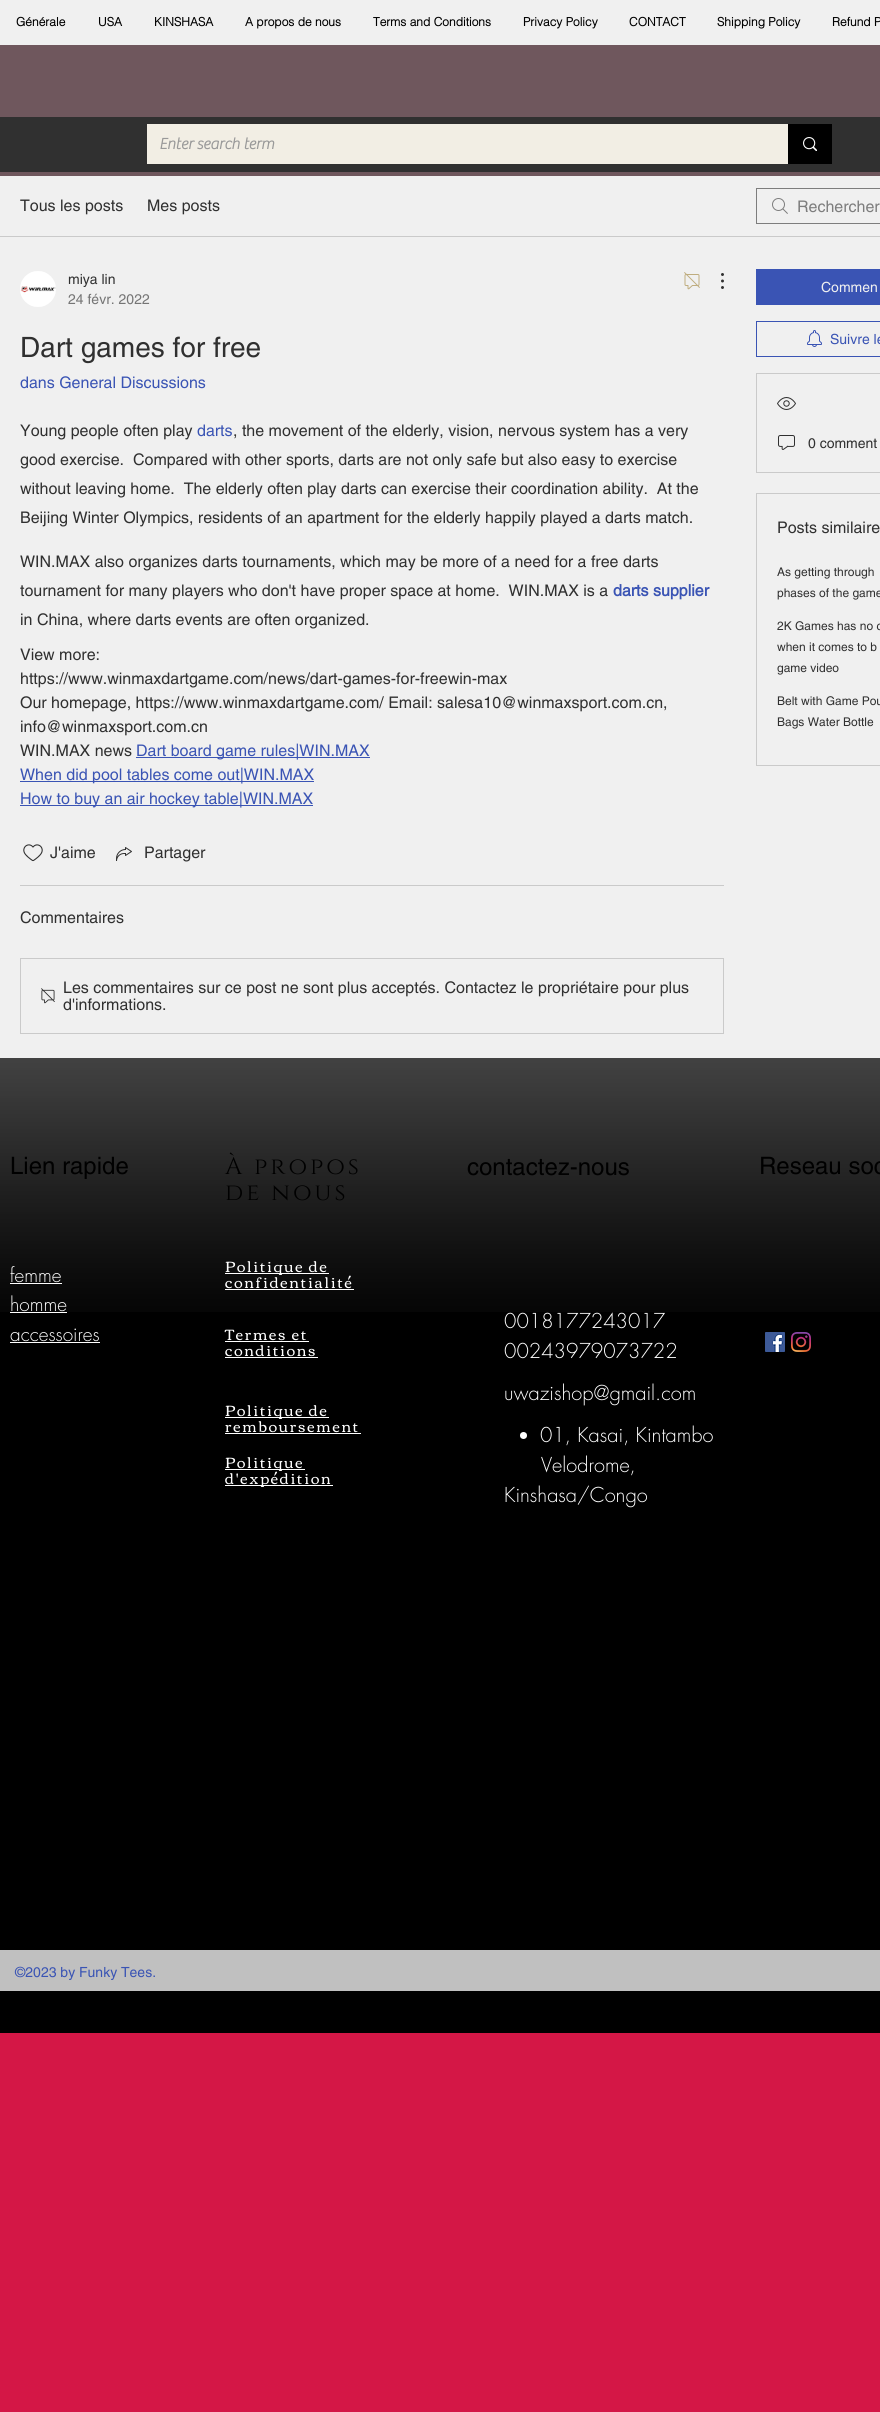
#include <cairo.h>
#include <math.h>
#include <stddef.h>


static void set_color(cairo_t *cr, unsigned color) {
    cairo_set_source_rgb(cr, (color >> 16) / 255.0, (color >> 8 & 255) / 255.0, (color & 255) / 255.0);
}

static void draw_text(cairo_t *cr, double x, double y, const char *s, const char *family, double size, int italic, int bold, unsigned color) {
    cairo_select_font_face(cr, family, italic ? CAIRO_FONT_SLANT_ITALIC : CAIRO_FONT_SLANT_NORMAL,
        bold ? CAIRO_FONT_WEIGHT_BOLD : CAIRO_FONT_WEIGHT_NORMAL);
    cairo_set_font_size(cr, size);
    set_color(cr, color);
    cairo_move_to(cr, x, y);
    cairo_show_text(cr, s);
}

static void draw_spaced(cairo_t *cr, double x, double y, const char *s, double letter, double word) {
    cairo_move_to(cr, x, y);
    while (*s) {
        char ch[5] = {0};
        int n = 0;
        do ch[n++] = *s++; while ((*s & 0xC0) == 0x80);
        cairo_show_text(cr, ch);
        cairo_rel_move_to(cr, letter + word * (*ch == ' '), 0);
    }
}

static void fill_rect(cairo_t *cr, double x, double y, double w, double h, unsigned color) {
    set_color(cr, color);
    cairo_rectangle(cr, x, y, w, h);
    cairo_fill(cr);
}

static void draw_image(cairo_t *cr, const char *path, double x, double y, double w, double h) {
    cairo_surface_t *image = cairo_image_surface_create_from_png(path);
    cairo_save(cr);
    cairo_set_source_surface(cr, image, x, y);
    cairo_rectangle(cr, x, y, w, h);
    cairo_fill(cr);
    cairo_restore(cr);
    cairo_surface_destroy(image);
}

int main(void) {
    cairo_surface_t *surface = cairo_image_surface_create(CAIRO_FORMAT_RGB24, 880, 2412);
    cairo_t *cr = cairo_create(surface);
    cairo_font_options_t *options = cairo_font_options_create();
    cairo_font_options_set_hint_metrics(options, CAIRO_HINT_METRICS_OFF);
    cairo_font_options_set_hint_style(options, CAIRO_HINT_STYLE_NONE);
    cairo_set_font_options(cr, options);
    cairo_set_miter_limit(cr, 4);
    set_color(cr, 0xD41746);
    cairo_paint(cr);
    fill_rect(cr, 0, 0, 880, 45, 0xF0F0F0);
    draw_text(cr, 16, 26, "Générale", "helvetica", 12, 0, 1, 0x000000);
    draw_text(cr, 98, 26, "USA", "helvetica", 12, 0, 1, 0x000000);
    draw_text(cr, 154, 26, "KINSHASA", "helvetica", 12, 0, 1, 0x000000);
    draw_text(cr, 245, 26, "A propos de nous", "helvetica", 12, 0, 1, 0x000000);
    draw_text(cr, 373, 26, "Terms and Conditions", "helvetica", 12, 0, 1, 0x000000);
    draw_text(cr, 523, 26, "Privacy Policy", "helvetica", 12, 0, 1, 0x000000);
    draw_text(cr, 629, 26, "CONTACT", "helvetica", 12, 0, 1, 0x000000);
    draw_text(cr, 717, 26, "Shipping Policy", "helvetica", 12, 0, 1, 0x000000);
    draw_text(cr, 832, 26, "Refund P", "helvetica", 12, 0, 1, 0x000000);
    fill_rect(cr, 0, 45, 880, 131, 0x6F575D);
    fill_rect(cr, 0, 117, 880, 55, 0x303030);
    fill_rect(cr, 147, 124, 641, 40, 0xF2EEE4);
    draw_text(cr, 159, 149, "Enter search term", "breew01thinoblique", 16, 0, 1, 0x999999);
    fill_rect(cr, 788, 124, 44, 40, 0x000000);
    draw_image(cr, "assets/img1.png", 803, 137, 14, 14);
    fill_rect(cr, 0, 176, 880, 882, 0xF0F0F0);
    fill_rect(cr, 0, 236, 880, 1, 0xCACACA);
    draw_text(cr, 20, 211, "Tous les posts", "helvetica", 16, 0, 0, 0x303030);
    draw_text(cr, 147, 211, "Mes posts", "helvetica", 16, 0, 0, 0x303030);
    draw_image(cr, "assets/img2.png", 772, 198, 16, 16);
    cairo_rectangle(cr, 756.5, 188.5, 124, 35);
    set_color(cr, 0x7D7D7D);
    cairo_set_line_width(cr, 1);
    cairo_stroke(cr);
    draw_text(cr, 797, 212, "Rechercher", "helvetica", 16, 0, 0, 0x7D7D7D);
    draw_image(cr, "assets/img3.png", 20, 271, 36, 36);
    draw_text(cr, 68, 284, "miya lin", "helvetica", 14, 0, 0, 0x303030);
    draw_text(cr, 68, 304, "24 févr. 2022", "helvetica", 14, 0, 0, 0x757575);
    draw_image(cr, "assets/img4.png", 684, 272, 16, 18);
    draw_image(cr, "assets/img5.png", 721, 273, 3, 16);
    draw_text(cr, 20, 357, "Dart games for free", "helvetica", 28, 0, 0, 0x303030);
    draw_text(cr, 20, 388, "dans General Discussions", "helvetica", 16, 0, 0, 0x3A54B4);
    draw_text(cr, 20, 436, "Young people often play", "helvetica", 16, 0, 0, 0x303030);
    draw_text(cr, 197, 436, "darts", "helvetica", 16, 0, 0, 0x3A54B4);
    draw_text(cr, 233, 436, ", the movement of the elderly, vision, nervous system has a very", "helvetica", 16, 0, 0, 0x303030);
    draw_text(cr, 20, 465, "good exercise.  Compared with other sports, darts are not only safe but also easy to exercise", "helvetica", 16, 0, 0, 0x303030);
    draw_text(cr, 20, 494, "without leaving home.  The elderly often play darts can exercise their coordination ability.  At the", "helvetica", 16, 0, 0, 0x303030);
    draw_text(cr, 20, 523, "Beijing Winter Olympics, residents of an apartment for the elderly happily played a darts match.", "helvetica", 16, 0, 0, 0x303030);
    draw_text(cr, 20, 567, "WIN.MAX also organizes darts tournaments, which may be more of a need for a free darts", "helvetica", 16, 0, 0, 0x303030);
    draw_text(cr, 20, 596, "tournament for many players who don't have proper space at home.  WIN.MAX is a", "helvetica", 16, 0, 0, 0x303030);
    draw_text(cr, 613, 596, "darts supplier", "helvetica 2", 16, 0, 1, 0x3A54B4);
    draw_text(cr, 20, 625, "in China, where darts events are often organized.", "helvetica", 16, 0, 0, 0x303030);
    draw_text(cr, 20, 660, "View more:", "helvetica", 16, 0, 0, 0x303030);
    draw_text(cr, 20, 684, "https://www.winmaxdartgame.com/news/dart-games-for-freewin-max", "helvetica", 16, 0, 0, 0x303030);
    draw_text(cr, 20, 708, "Our homepage, https://www.winmaxdartgame.com/ Email: salesa10@winmaxsport.com.cn,", "helvetica", 16, 0, 0, 0x303030);
    draw_text(cr, 20, 732, "info@winmaxsport.com.cn", "helvetica", 16, 0, 0, 0x303030);
    draw_text(cr, 20, 756, "WIN.MAX news", "helvetica", 16, 0, 0, 0x303030);
    fill_rect(cr, 136, 757, 234, 1, 0x3A54B4);
    draw_text(cr, 136, 756, "Dart board game rules|WIN.MAX", "helvetica", 16, 0, 0, 0x3A54B4);
    fill_rect(cr, 20, 781, 294, 1, 0x3A54B4);
    draw_text(cr, 20, 780, "When did pool tables come out|WIN.MAX", "helvetica", 16, 0, 0, 0x3A54B4);
    fill_rect(cr, 20, 805, 293, 1, 0x3A54B4);
    draw_text(cr, 20, 804, "How to buy an air hockey table|WIN.MAX", "helvetica", 16, 0, 0, 0x3A54B4);
    draw_image(cr, "assets/img6.png", 23, 844, 20, 18);
    draw_text(cr, 50, 858, "J'aime", "helvetica", 16, 0, 0, 0x303030);
    draw_image(cr, "assets/img7.png", 116, 847, 16, 14);
    draw_text(cr, 144, 858, "Partager", "helvetica", 16, 0, 0, 0x303030);
    fill_rect(cr, 20, 885, 704, 1, 0xCACACA);
    draw_text(cr, 20, 923, "Commentaires", "helvetica", 16, 0, 0, 0x303030);
    cairo_rectangle(cr, 20.5, 958.5, 703, 75);
    set_color(cr, 0xCACACA);
    cairo_stroke(cr);
    draw_image(cr, "assets/img8.png", 41, 988, 14, 16);
    draw_text(cr, 63, 993, "Les commentaires sur ce post ne sont plus acceptés. Contactez le propriétaire pour plus", "helvetica", 16, 0, 0, 0x303030);
    draw_text(cr, 63, 1010, "d'informations.", "helvetica", 16, 0, 0, 0x303030);
    fill_rect(cr, 756, 269, 124, 36, 0x3A54B4);
    draw_text(cr, 821, 292, "Commen", "helvetica", 14, 0, 0, 0xF0F0F0);
    cairo_rectangle(cr, 756.5, 321.5, 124, 35);
    set_color(cr, 0x3A54B4);
    cairo_stroke(cr);
    draw_image(cr, "assets/img9.png", 807, 330, 15, 17);
    draw_text(cr, 830, 344, "Suivre le", "helvetica", 14, 0, 0, 0x3A54B4);
    cairo_rectangle(cr, 756.5, 373.5, 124, 99);
    set_color(cr, 0xCACACA);
    cairo_stroke(cr);
    draw_image(cr, "assets/img10.png", 777, 397, 19, 13);
    draw_image(cr, "assets/img11.png", 778, 435, 17, 15);
    draw_text(cr, 808, 448, "0 comment", "helvetica", 14, 0, 0, 0x303030);
    cairo_rectangle(cr, 756.5, 493.5, 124, 272);
    set_color(cr, 0xCACACA);
    cairo_stroke(cr);
    draw_text(cr, 777, 533, "Posts similaire", "helvetica", 16, 0, 0, 0x303030);
    draw_text(cr, 777, 576, "As getting through", "helvetica", 12, 0, 0, 0x303030);
    draw_text(cr, 777, 597, "phases of the game", "helvetica", 12, 0, 0, 0x303030);
    draw_text(cr, 777, 630, "2K Games has no c", "helvetica", 12, 0, 0, 0x303030);
    draw_text(cr, 777, 651, "when it comes to b", "helvetica", 12, 0, 0, 0x303030);
    draw_text(cr, 777, 672, "game video", "helvetica", 12, 0, 0, 0x303030);
    draw_text(cr, 777, 705, "Belt with Game Pou", "helvetica", 12, 0, 0, 0x303030);
    draw_text(cr, 777, 726, "Bags Water Bottle", "helvetica", 12, 0, 0, 0x303030);
    fill_rect(cr, 0, 1058, 880, 975, 0x000000);
    draw_image(cr, "assets/img12.png", 0, 1058, 880, 254);
    draw_text(cr, 10, 1174, "Lien rapide", "helvetica", 24, 0, 0, 0x000000);
    cairo_select_font_face(cr, "Cinzel", CAIRO_FONT_SLANT_NORMAL, CAIRO_FONT_WEIGHT_NORMAL);
    draw_spaced(cr, 225, 1174, "À propos", 3, 0);
    draw_spaced(cr, 225, 1200, "de nous", 3, 0);
    draw_text(cr, 467, 1175, "contactez-nous", "helvetica", 24, 0, 0, 0x000000);
    draw_text(cr, 759, 1174, "Reseau soc", "helvetica", 24, 0, 0, 0x000000);
    draw_text(cr, 10, 1282, "femme", "futura Light", 19, 0, 0, 0xFFFFFF);
    fill_rect(cr, 10, 1283, 52, 1, 0xFFFFFF);
    draw_text(cr, 10, 1311, "homme", "futura Light", 19, 0, 0, 0xFFFFFF);
    fill_rect(cr, 10, 1312, 57, 1, 0xFFFFFF);
    draw_text(cr, 10, 1341, "accessoires", "futura Light", 19, 0, 0, 0xFFFFFF);
    fill_rect(cr, 10, 1342, 90, 1, 0xFFFFFF);
    fill_rect(cr, 225, 1273, 104, 1, 0xFFFFFF);
    cairo_select_font_face(cr, "Corben", CAIRO_FONT_SLANT_NORMAL, CAIRO_FONT_WEIGHT_NORMAL);
    cairo_set_font_size(cr, 15);
    draw_spaced(cr, 225, 1272, "Politique de", 1.75, 0);
    draw_spaced(cr, 225, 1288, "confidentialité", 1.75, 0);
    fill_rect(cr, 225, 1289, 129, 1, 0xFFFFFF);
    draw_spaced(cr, 225, 1340, "Termes et", 1.75, 0);
    fill_rect(cr, 225, 1341, 84, 1, 0xFFFFFF);
    draw_spaced(cr, 225, 1356, "conditions", 1.75, 0);
    fill_rect(cr, 225, 1357, 93, 1, 0xFFFFFF);
    draw_text(cr, 504, 1328, "0018177243017", "futura Light", 20, 0, 0, 0xFFFFFF);
    draw_text(cr, 504, 1358, "00243979073722", "futura Light", 20, 0, 0, 0xFFFFFF);
    draw_text(cr, 504, 1400, "uwazishop@gmail.com", "futura Light", 20, 0, 0, 0xFFFFFF);
    cairo_new_path(cr);
    cairo_arc(cr, 523.5, 1435.5, 3.5, 0, 2 * M_PI);
    cairo_fill(cr);
    draw_text(cr, 540, 1442, "01, Kasai, Kintambo", "futura Light", 20, 0, 0, 0xFFFFFF);
    draw_text(cr, 541, 1472, "Velodrome,", "futura Light", 20, 0, 0, 0xFFFFFF);
    draw_text(cr, 504, 1502, "Kinshasa/Congo", "futura Light", 20, 0, 0, 0xFFFFFF);
    draw_image(cr, "assets/img13.png", 765, 1332, 20, 20);
    draw_image(cr, "assets/img14.png", 791, 1332, 20, 20);
    fill_rect(cr, 225, 1417, 104, 1, 0xFFFFFF);
    cairo_select_font_face(cr, "Corben", CAIRO_FONT_SLANT_NORMAL, CAIRO_FONT_WEIGHT_NORMAL);
    cairo_set_font_size(cr, 15);
    draw_spaced(cr, 225, 1416, "Politique de", 1.75, 0);
    draw_spaced(cr, 225, 1432, "remboursement", 1.75, 0);
    fill_rect(cr, 225, 1433, 136, 1, 0xFFFFFF);
    fill_rect(cr, 225, 1469, 80, 1, 0xFFFFFF);
    draw_spaced(cr, 225, 1468, "Politique", 1.75, 0);
    fill_rect(cr, 225, 1485, 108, 1, 0xFFFFFF);
    draw_spaced(cr, 225, 1484, "d'expédition", 1.75, 0);
    fill_rect(cr, 0, 1950, 880, 41, 0xC0C0C0);
    draw_text(cr, 15, 1977, "©2023 by Funky Tees.", "helvetica", 14, 0, 0, 0x3A54B4);
    cairo_surface_write_to_png(surface, "output.png");
    cairo_font_options_destroy(options);
    cairo_destroy(cr);
    cairo_surface_destroy(surface);
    return 0;
}
